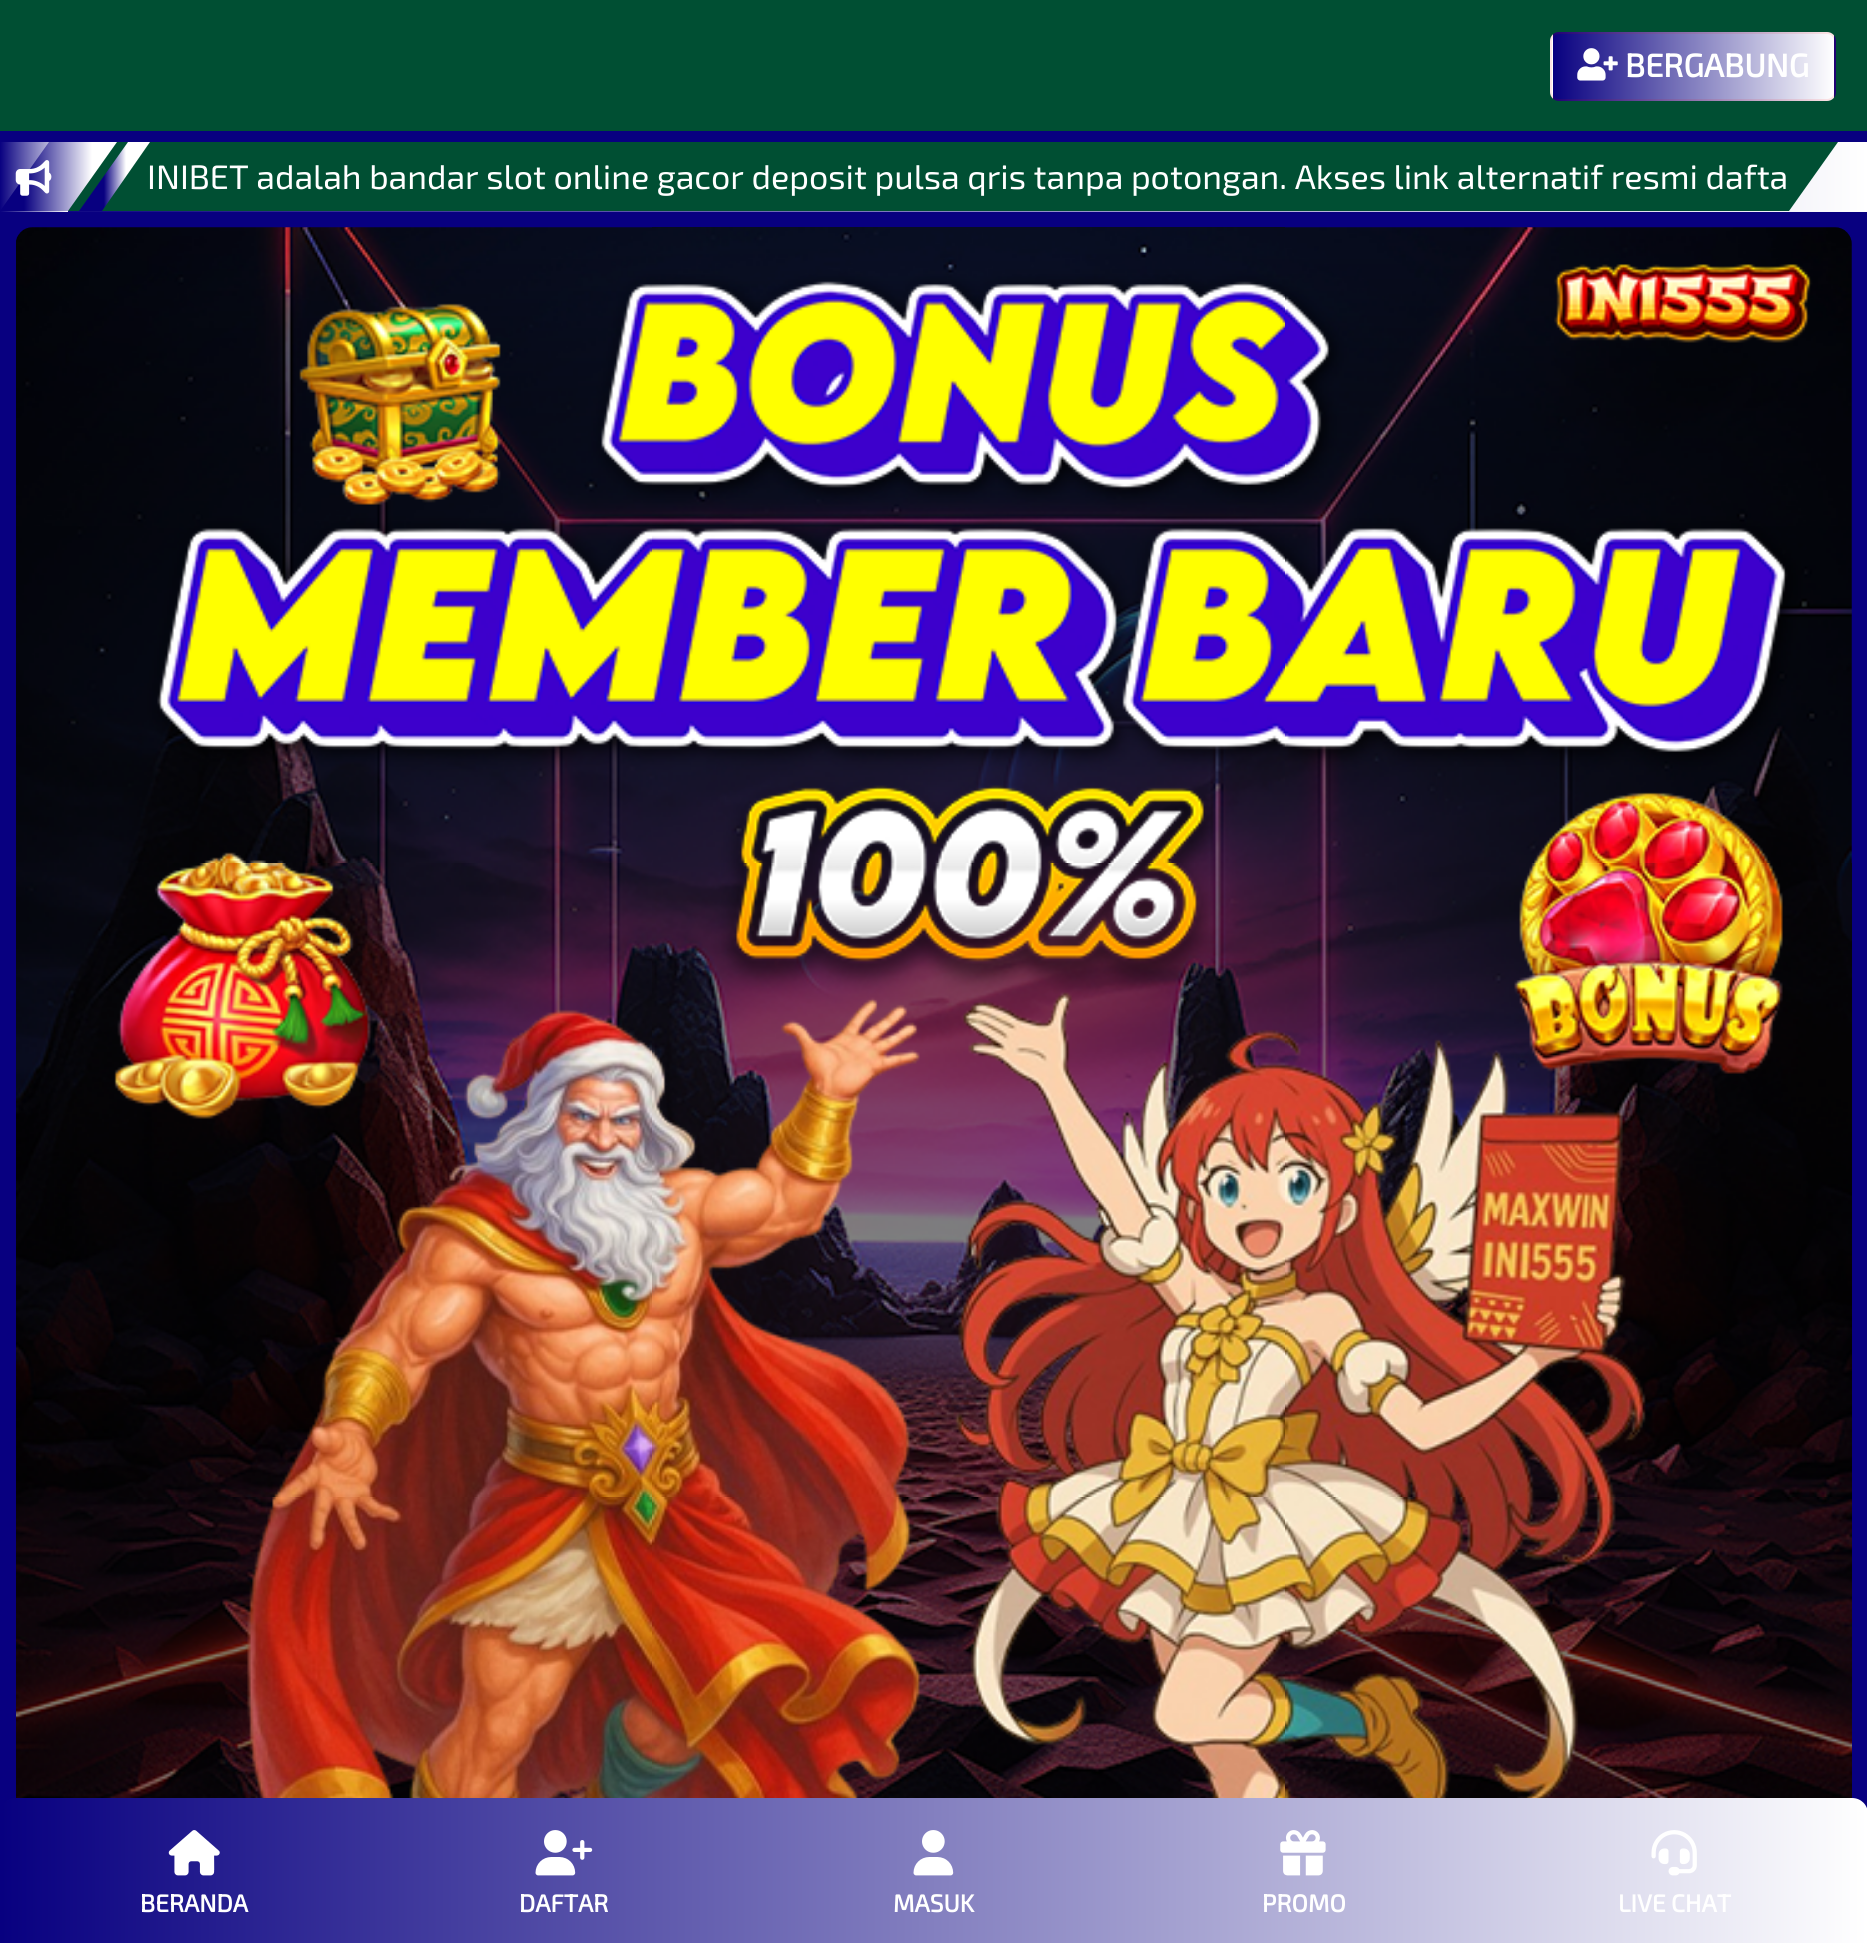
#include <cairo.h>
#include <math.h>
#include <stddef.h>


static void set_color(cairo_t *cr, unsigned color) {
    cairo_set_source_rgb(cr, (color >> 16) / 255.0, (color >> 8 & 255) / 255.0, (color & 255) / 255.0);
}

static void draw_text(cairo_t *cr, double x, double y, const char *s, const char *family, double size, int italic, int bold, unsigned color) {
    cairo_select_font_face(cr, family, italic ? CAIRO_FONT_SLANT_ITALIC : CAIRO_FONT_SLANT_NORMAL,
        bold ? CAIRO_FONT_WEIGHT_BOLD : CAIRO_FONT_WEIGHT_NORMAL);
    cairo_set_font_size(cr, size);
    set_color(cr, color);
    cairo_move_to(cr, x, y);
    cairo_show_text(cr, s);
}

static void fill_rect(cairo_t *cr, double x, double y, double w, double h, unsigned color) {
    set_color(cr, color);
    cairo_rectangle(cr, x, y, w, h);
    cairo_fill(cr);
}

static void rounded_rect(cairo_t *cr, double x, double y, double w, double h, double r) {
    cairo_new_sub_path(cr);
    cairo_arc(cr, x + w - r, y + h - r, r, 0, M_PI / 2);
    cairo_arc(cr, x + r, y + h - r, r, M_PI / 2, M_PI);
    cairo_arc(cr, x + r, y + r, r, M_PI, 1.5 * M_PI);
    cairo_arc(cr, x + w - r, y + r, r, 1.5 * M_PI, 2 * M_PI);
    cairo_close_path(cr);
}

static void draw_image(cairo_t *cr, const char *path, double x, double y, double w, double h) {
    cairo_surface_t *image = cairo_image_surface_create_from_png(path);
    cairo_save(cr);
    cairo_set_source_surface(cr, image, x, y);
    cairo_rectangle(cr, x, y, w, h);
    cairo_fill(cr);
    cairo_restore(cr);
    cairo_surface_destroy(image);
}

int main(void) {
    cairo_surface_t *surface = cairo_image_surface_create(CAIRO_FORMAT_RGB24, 1867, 1943);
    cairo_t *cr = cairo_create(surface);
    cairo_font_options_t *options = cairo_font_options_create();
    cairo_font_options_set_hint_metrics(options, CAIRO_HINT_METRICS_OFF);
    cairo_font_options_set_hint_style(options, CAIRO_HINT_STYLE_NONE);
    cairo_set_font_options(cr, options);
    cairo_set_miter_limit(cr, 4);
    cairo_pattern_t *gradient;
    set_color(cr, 0x080080);
    cairo_paint(cr);
    fill_rect(cr, 0, 0, 1867, 131, 0x004F33);
    cairo_save(cr);
    rounded_rect(cr, 1550, 32, 286, 69, 9);
    cairo_clip(cr);
    gradient = cairo_pattern_create_linear(1271, 66, 1553, 66);
    cairo_pattern_add_color_stop_rgba(gradient, 0, 0.031, 0, 0.502, 1);
    cairo_pattern_add_color_stop_rgba(gradient, 1, 1, 1, 1, 1);
    cairo_set_source(cr, gradient);
    cairo_pattern_destroy(gradient);
    cairo_rectangle(cr, 1550, 32, 3, 69);
    cairo_fill(cr);
    gradient = cairo_pattern_create_linear(1553, 66, 1834, 66);
    cairo_pattern_add_color_stop_rgba(gradient, 0, 0.031, 0, 0.502, 1);
    cairo_pattern_add_color_stop_rgba(gradient, 1, 1, 1, 1, 1);
    cairo_set_source(cr, gradient);
    cairo_pattern_destroy(gradient);
    cairo_rectangle(cr, 1553, 32, 281, 69);
    cairo_fill(cr);
    gradient = cairo_pattern_create_linear(1834, 66, 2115, 66);
    cairo_pattern_add_color_stop_rgba(gradient, 0, 0.031, 0, 0.502, 1);
    cairo_pattern_add_color_stop_rgba(gradient, 1, 1, 1, 1, 1);
    cairo_set_source(cr, gradient);
    cairo_pattern_destroy(gradient);
    cairo_rectangle(cr, 1834, 32, 2, 69);
    cairo_fill(cr);
    cairo_restore(cr);
    rounded_rect(cr, 1551, 33, 284, 67, 8);
    cairo_set_source_rgba(cr, 1, 0, 0, 0.1);
    cairo_stroke(cr);
    draw_image(cr, "assets/img1.png", 1577, 48, 41, 33);
    draw_text(cr, 1625, 77, "BERGABUNG", "Exo 2", 32.5, 0, 1, 0xFFFFFF);
    gradient = cairo_pattern_create_linear(0, 177, 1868, 177);
    cairo_pattern_add_color_stop_rgba(gradient, 0, 0.031, 0, 0.502, 1);
    cairo_pattern_add_color_stop_rgba(gradient, 1, 1, 1, 1, 1);
    cairo_set_source(cr, gradient);
    cairo_pattern_destroy(gradient);
    cairo_rectangle(cr, 68, 142, 1799, 70);
    cairo_fill(cr);
    set_color(cr, 0x004F33);
    cairo_new_path(cr);
    cairo_move_to(cr, 49, 142);
    cairo_line_to(cr, 1838, 142);
    cairo_line_to(cr, 1789, 211);
    cairo_line_to(cr, 0, 211);
    cairo_close_path(cr);
    cairo_fill(cr);
    gradient = cairo_pattern_create_linear(0, 177, 68, 177);
    cairo_pattern_add_color_stop_rgba(gradient, 0, 0.031, 0, 0.502, 1);
    cairo_pattern_add_color_stop_rgba(gradient, 1, 1, 1, 1, 1);
    cairo_set_source(cr, gradient);
    cairo_pattern_destroy(gradient);
    cairo_rectangle(cr, 0, 142, 68, 70);
    cairo_fill(cr);
    gradient = cairo_pattern_create_linear(24, 177, 92, 177);
    cairo_pattern_add_color_stop_rgba(gradient, 0, 0.031, 0, 0.502, 1);
    cairo_pattern_add_color_stop_rgba(gradient, 1, 1, 1, 1, 1);
    cairo_set_source(cr, gradient);
    cairo_pattern_destroy(gradient);
    cairo_new_path(cr);
    cairo_move_to(cr, 49, 142);
    cairo_line_to(cr, 117, 142);
    cairo_line_to(cr, 68, 211);
    cairo_line_to(cr, 0, 211);
    cairo_close_path(cr);
    cairo_fill(cr);
    draw_image(cr, "assets/img2.png", 15, 160, 37, 36);
    gradient = cairo_pattern_create_linear(104, 177, 126, 177);
    cairo_pattern_add_color_stop_rgba(gradient, 0, 0.031, 0, 0.502, 1);
    cairo_pattern_add_color_stop_rgba(gradient, 1, 1, 1, 1, 1);
    cairo_set_source(cr, gradient);
    cairo_pattern_destroy(gradient);
    cairo_new_path(cr);
    cairo_move_to(cr, 128, 142);
    cairo_line_to(cr, 150, 142);
    cairo_line_to(cr, 102, 211);
    cairo_line_to(cr, 79, 211);
    cairo_close_path(cr);
    cairo_fill(cr);
    draw_text(cr, 147, 189, "INIBET adalah bandar slot online gacor deposit pulsa qris tanpa potongan. Akses link alternatif resmi dafta", "Exo 2", 34, 0, 0, 0xFFFFFF);
    draw_image(cr, "assets/img3.png", 16, 227, 1836, 1571);
    gradient = cairo_pattern_create_linear(0, 1871, 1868, 1871);
    cairo_pattern_add_color_stop_rgba(gradient, 0, 0.031, 0, 0.502, 1);
    cairo_pattern_add_color_stop_rgba(gradient, 1, 1, 1, 1, 1);
    cairo_set_source(cr, gradient);
    cairo_pattern_destroy(gradient);
    cairo_new_path(cr);
    cairo_move_to(cr, 16, 1798);
    cairo_line_to(cr, 1852, 1798);
    cairo_curve_to(cr, 1861, 1798, 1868, 1805, 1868, 1814);
    cairo_line_to(cr, 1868, 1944);
    cairo_line_to(cr, 0, 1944);
    cairo_line_to(cr, 0, 1814);
    cairo_curve_to(cr, 0, 1805, 7, 1798, 16, 1798);
    cairo_close_path(cr);
    cairo_fill(cr);
    draw_image(cr, "assets/img4.png", 168, 1830, 52, 46);
    draw_text(cr, 140, 1912, "BERANDA", "Exo 2", 24.5, 0, 1, 0xFFFFFF);
    draw_image(cr, "assets/img5.png", 535, 1830, 58, 46);
    draw_text(cr, 519, 1912, "DAFTAR", "Exo 2", 24.5, 0, 1, 0xFFFFFF);
    draw_image(cr, "assets/img6.png", 913, 1830, 41, 46);
    draw_text(cr, 893, 1912, "MASUK", "Exo 2", 24.5, 0, 1, 0xFFFFFF);
    draw_image(cr, "assets/img7.png", 1280, 1830, 46, 46);
    draw_text(cr, 1262, 1912, "PROMO", "Exo 2", 24.5, 0, 1, 0xFFFFFF);
    draw_image(cr, "assets/img8.png", 1651, 1830, 46, 46);
    draw_text(cr, 1618, 1912, "LIVE CHAT", "Exo 2", 24.5, 0, 1, 0xFFFFFF);
    cairo_surface_write_to_png(surface, "output.png");
    cairo_font_options_destroy(options);
    cairo_destroy(cr);
    cairo_surface_destroy(surface);
    return 0;
}
